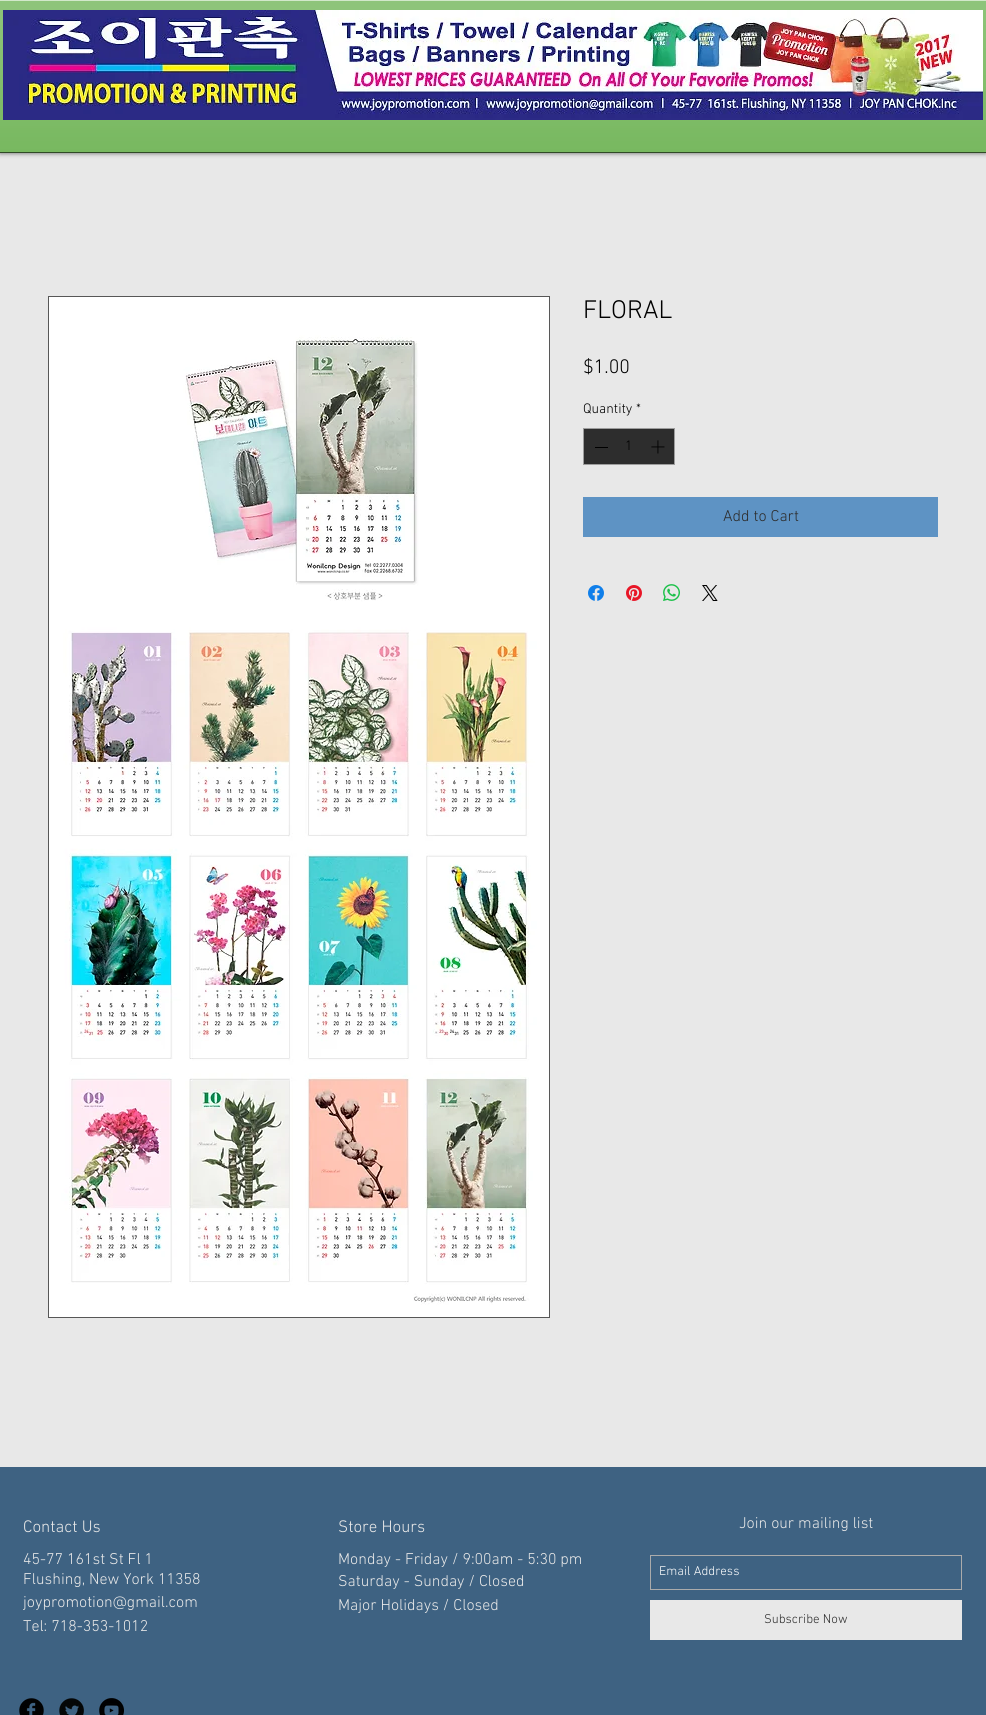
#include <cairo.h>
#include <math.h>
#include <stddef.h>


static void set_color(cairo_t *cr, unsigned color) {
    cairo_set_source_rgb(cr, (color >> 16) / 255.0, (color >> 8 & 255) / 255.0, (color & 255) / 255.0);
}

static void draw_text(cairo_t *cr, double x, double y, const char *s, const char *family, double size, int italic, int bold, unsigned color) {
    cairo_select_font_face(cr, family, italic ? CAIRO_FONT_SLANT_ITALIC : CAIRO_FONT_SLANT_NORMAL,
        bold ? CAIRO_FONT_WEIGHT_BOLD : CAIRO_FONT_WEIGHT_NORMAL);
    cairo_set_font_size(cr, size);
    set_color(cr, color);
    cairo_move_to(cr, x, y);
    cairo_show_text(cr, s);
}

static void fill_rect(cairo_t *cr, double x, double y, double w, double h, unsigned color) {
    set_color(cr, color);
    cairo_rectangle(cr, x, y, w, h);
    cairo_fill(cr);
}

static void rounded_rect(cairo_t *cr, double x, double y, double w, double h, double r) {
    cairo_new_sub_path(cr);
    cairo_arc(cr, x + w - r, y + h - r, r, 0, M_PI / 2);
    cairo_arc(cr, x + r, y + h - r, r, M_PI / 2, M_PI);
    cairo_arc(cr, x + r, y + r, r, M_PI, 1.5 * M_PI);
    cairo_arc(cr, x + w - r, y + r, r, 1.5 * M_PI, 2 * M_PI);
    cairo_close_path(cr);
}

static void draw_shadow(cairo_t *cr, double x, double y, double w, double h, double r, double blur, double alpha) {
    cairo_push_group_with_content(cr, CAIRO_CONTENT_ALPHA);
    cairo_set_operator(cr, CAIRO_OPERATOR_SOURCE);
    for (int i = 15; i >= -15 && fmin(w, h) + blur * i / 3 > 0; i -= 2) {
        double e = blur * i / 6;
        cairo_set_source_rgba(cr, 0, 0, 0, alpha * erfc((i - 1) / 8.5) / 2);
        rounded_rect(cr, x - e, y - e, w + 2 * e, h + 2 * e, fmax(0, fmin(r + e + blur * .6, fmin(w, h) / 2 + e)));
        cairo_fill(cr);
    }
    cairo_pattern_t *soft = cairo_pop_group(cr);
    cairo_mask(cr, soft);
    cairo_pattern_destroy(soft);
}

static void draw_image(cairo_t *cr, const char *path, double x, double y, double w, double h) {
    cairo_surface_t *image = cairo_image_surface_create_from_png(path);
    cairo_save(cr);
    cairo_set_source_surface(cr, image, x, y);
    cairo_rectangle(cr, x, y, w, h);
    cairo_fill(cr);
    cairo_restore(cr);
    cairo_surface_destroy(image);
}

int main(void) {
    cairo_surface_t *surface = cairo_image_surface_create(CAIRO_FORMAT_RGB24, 986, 1715);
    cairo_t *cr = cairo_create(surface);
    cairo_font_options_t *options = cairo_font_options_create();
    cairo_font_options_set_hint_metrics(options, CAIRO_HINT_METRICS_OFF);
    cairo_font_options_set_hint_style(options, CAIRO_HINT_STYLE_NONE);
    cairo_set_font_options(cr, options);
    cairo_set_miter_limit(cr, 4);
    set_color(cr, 0xE8E8E8);
    cairo_paint(cr);
    set_color(cr, 0x000000);
    draw_shadow(cr, 0, 0, 986, 153, 0, 2.5, 0.6);
    fill_rect(cr, 0, 1, 986, 151, 0x68B04D);
    draw_image(cr, "assets/img1.png", 0, 1, 986, 151);
    fill_rect(cr, 0, 152, 986, 1, 0x304A26);
    fill_rect(cr, 0, 0, 986, 1, 0xD2E8CA);
    draw_image(cr, "assets/img2.png", 3, 10, 980, 110);
    cairo_rectangle(cr, 48.5, 296.5, 501, 1021);
    set_color(cr, 0x575757);
    cairo_set_line_width(cr, 1);
    cairo_stroke(cr);
    draw_image(cr, "assets/img3.png", 49, 297, 500, 1020);
    draw_text(cr, 583, 318, "FLORAL", "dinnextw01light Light", 26, 0, 0, 0x000000);
    draw_text(cr, 583, 373, "$1.00", "dinnextw01light Light", 20, 0, 0, 0x000000);
    draw_text(cr, 583, 413, "Quantity", "dinnextw01light Light", 14, 0, 0, 0x000000);
    draw_text(cr, 636, 413, "*", "dinnextw01light Light", 14, 0, 0, 0x000000);
    set_color(cr, 0x2D2D2D);
    cairo_rectangle(cr, 583.5, 428.5, 91, 36);
    cairo_fill_preserve(cr);
    set_color(cr, 0x9D9D9D);
    cairo_stroke(cr);
    fill_rect(cr, 595, 447, 13, 1, 0x000000);
    draw_text(cr, 625, 450, "1", "dinnextw01light Light", 14, 0, 0, 0x000000);
    draw_image(cr, "assets/img4.png", 651, 440, 14, 14);
    fill_rect(cr, 583, 497, 355, 40, 0x5E93C4);
    draw_text(cr, 723, 521, "Add to Cart", "dinnextw01light Light", 16, 0, 0, 0x2D2D2D);
    draw_image(cr, "assets/img5.png", 588, 585, 16, 16);
    draw_image(cr, "assets/img6.png", 626, 585, 16, 16);
    draw_image(cr, "assets/img7.png", 663, 584, 17, 17);
    draw_image(cr, "assets/img8.png", 702, 585, 16, 16);
    fill_rect(cr, 0, 1467, 986, 248, 0x3E6282);
    draw_text(cr, 23, 1532, "Contact Us", "dinnextw01light Light", 17, 0, 0, 0xE8E8E8);
    draw_text(cr, 23, 1564, "45-77 161st St Fl 1", "dinnextw01light Light", 16, 0, 0, 0xE8E8E8);
    draw_text(cr, 23, 1584, "Flushing, New York 11358", "dinnextw01light Light", 16, 0, 0, 0xE8E8E8);
    draw_text(cr, 23, 1607, "joypromotion@gmail.com", "dinnextw01light Light", 16, 0, 0, 0xE8E8E8);
    draw_text(cr, 23, 1631, "Tel: 718-353-1012", "dinnextw01light Light", 16, 0, 0, 0xE8E8E8);
    draw_text(cr, 338, 1532, "Store Hours", "dinnextw01light Light", 17, 0, 0, 0xE8E8E8);
    draw_text(cr, 338, 1564, "Monday - Friday / 9:00am - 5:30 pm", "dinnextw01light Light", 16, 0, 0, 0xE8E8E8);
    draw_text(cr, 338, 1586, "Saturday - Sunday / Closed", "dinnextw01light Light", 16, 0, 0, 0xE8E8E8);
    draw_text(cr, 338, 1610, "Major Holidays / Closed", "dinnextw01light Light", 16, 0, 0, 0xE8E8E8);
    draw_text(cr, 739, 1528, "Join our mailing list", "dinnextw01light Light", 16, 0, 0, 0xE8E8E8);
    cairo_rectangle(cr, 650.5, 1555.5, 311, 34);
    set_color(cr, 0xABABAB);
    cairo_stroke(cr);
    draw_text(cr, 659, 1575, "Email Address", "dinnextw01light Light", 13, 0, 0, 0xFFFFFF);
    fill_rect(cr, 650, 1600, 312, 40, 0xE8E8E8);
    draw_text(cr, 764, 1623, "Subscribe Now", "dinnextw01light Light", 13, 0, 0, 0x2D2D2D);
    draw_image(cr, "assets/img9.png", 19, 1698, 25, 17);
    draw_image(cr, "assets/img10.png", 59, 1698, 25, 17);
    draw_image(cr, "assets/img11.png", 99, 1698, 25, 17);
    cairo_surface_write_to_png(surface, "output.png");
    cairo_font_options_destroy(options);
    cairo_destroy(cr);
    cairo_surface_destroy(surface);
    return 0;
}
